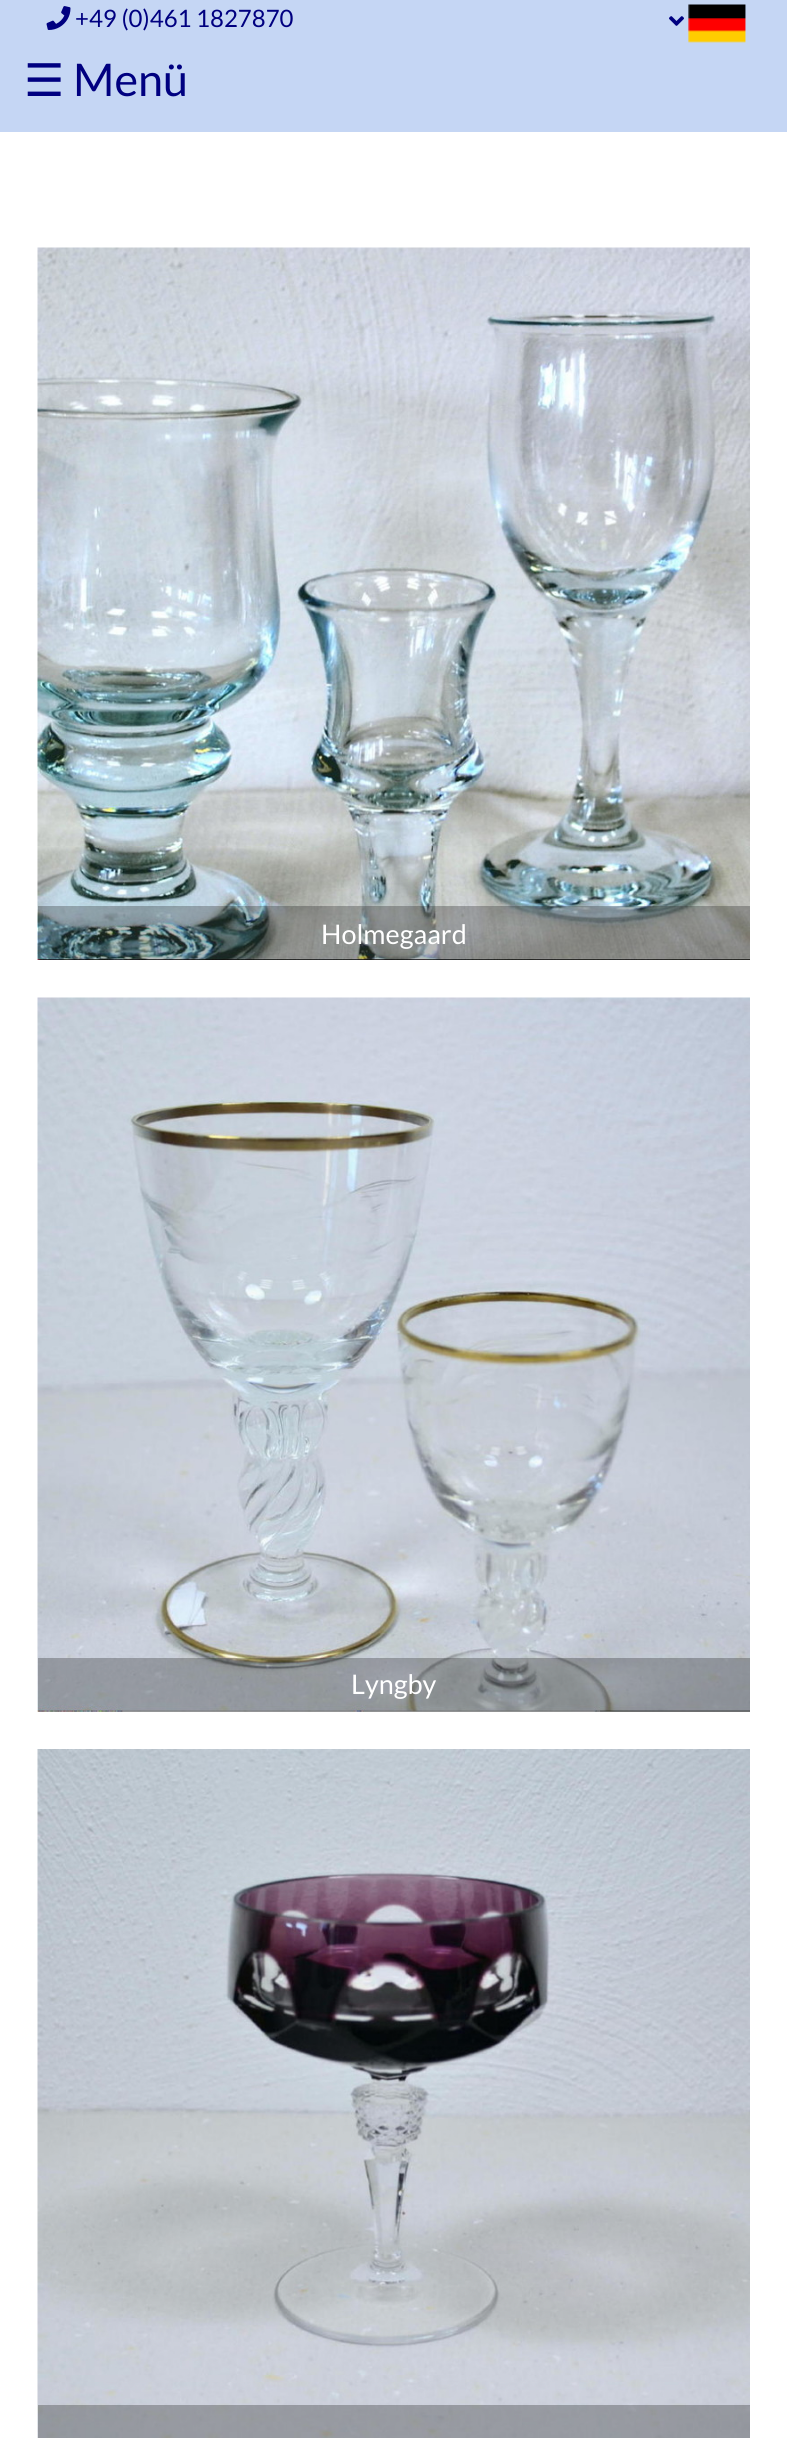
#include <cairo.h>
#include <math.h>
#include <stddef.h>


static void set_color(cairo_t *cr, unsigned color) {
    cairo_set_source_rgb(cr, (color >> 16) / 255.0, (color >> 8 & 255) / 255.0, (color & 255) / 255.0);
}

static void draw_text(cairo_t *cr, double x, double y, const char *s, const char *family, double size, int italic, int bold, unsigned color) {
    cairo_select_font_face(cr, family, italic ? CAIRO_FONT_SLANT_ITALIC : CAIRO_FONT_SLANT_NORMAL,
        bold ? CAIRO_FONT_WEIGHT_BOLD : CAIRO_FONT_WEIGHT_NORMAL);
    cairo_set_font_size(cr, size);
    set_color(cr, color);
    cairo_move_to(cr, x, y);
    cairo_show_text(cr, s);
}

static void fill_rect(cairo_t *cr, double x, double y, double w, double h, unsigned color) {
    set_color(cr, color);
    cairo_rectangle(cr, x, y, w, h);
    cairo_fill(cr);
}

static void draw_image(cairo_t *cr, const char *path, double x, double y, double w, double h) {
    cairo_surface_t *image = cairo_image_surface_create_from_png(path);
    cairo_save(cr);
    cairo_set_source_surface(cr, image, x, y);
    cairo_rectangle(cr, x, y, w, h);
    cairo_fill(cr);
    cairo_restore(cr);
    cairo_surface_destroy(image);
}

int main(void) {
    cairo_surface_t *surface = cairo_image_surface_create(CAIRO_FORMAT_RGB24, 787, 2438);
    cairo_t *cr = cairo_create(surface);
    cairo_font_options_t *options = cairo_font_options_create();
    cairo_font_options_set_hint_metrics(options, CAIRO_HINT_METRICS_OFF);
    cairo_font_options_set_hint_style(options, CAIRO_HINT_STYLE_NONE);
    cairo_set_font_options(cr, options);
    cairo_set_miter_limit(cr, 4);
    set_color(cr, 0xFFFFFF);
    cairo_paint(cr);
    fill_rect(cr, 0, 0, 787, 132, 0xC5D6F4);
    draw_image(cr, "assets/img1.png", 46, 6, 25, 24);
    draw_text(cr, 75, 27, "+49 (0)461 1827870", "Lato", 24, 0, 0, 0x000080);
    draw_image(cr, "assets/img2.png", 669, 16, 15, 10);
    draw_image(cr, "assets/img3.png", 688, 4, 58, 39);
    draw_text(cr, 24, 96, "☰", "DejaVu Sans", 45, 0, 0, 0x000080);
    draw_text(cr, 73, 96, "Menü", "Lato", 45, 0, 0, 0x000080);
    draw_image(cr, "assets/img4.png", 37, 247, 713, 713);
    cairo_set_source_rgba(cr, 0.157, 0.157, 0.157, 0.32);
    cairo_rectangle(cr, 38, 906, 712, 54);
    cairo_fill(cr);
    draw_text(cr, 321, 944, "Holmegaard", "Lato", 27, 0, 0, 0xFFFFFF);
    draw_image(cr, "assets/img5.png", 37, 997, 713, 715);
    cairo_set_source_rgba(cr, 0.157, 0.157, 0.157, 0.32);
    cairo_rectangle(cr, 38, 1658, 712, 54);
    cairo_fill(cr);
    draw_text(cr, 351, 1694, "Lyngby", "Lato", 27, 0, 0, 0xFFFFFF);
    draw_image(cr, "assets/img6.png", 37, 1749, 713, 689);
    cairo_set_source_rgba(cr, 0.157, 0.157, 0.157, 0.32);
    cairo_rectangle(cr, 38, 2405, 712, 33);
    cairo_fill(cr);
    cairo_surface_write_to_png(surface, "output.png");
    cairo_font_options_destroy(options);
    cairo_destroy(cr);
    cairo_surface_destroy(surface);
    return 0;
}
